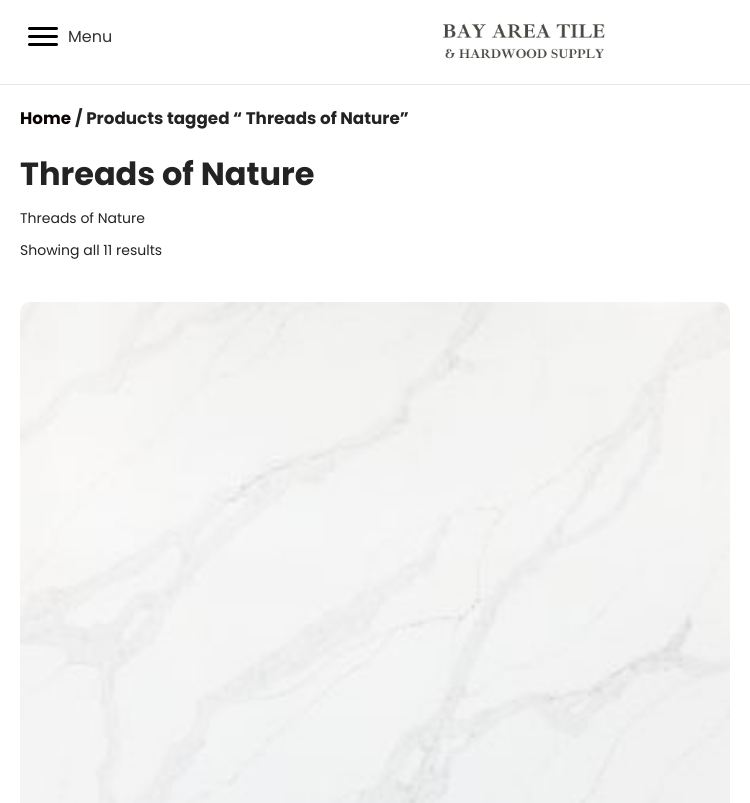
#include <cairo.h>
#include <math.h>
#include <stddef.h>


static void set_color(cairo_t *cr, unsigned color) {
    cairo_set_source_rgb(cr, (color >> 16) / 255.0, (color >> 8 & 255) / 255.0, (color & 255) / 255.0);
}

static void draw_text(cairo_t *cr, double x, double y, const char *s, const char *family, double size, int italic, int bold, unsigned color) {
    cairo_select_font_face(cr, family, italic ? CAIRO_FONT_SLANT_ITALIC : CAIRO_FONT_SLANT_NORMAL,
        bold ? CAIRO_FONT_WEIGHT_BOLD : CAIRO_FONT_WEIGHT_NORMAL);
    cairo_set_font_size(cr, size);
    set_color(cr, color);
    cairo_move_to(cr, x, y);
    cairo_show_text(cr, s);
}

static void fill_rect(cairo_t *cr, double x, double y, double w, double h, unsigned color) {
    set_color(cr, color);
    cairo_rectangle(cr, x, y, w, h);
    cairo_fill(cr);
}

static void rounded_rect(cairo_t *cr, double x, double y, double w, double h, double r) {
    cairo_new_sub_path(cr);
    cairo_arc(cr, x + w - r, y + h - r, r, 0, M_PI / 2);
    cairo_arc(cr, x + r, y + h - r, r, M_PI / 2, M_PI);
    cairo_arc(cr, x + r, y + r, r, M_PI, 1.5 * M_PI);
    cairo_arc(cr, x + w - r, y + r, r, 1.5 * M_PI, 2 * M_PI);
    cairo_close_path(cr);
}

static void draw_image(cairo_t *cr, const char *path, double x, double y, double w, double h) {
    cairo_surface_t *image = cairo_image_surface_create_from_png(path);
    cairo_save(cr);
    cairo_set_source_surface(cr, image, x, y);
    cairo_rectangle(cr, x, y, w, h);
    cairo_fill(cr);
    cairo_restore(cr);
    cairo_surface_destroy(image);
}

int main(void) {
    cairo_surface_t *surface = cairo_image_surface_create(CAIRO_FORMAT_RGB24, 750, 803);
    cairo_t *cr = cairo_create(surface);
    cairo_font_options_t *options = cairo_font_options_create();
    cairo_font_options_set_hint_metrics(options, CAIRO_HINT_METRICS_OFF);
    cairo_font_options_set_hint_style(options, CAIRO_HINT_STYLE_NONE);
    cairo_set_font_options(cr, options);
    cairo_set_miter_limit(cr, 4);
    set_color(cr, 0xFFFFFF);
    cairo_paint(cr);
    fill_rect(cr, 0, 84, 750, 1, 0xE6E6E6);
    set_color(cr, 0x000000);
    rounded_rect(cr, 28, 35, 30, 3, 1.5);
    cairo_fill(cr);
    rounded_rect(cr, 28, 27, 30, 3, 1.5);
    cairo_fill(cr);
    rounded_rect(cr, 28, 43, 30, 3, 1.5);
    cairo_fill(cr);
    draw_text(cr, 68, 42, "Menu", "Poppins", 16, 0, 0, 0x333333);
    draw_image(cr, "assets/img1.png", 443, 23, 162, 36);
    draw_text(cr, 20, 124, "Home", "Poppins", 16.75, 0, 1, 0x0A0101);
    draw_text(cr, 75, 124, "/ Products tagged “ Threads of Nature”", "Poppins", 16.75, 0, 1, 0x232323);
    draw_text(cr, 20, 185, "Threads of Nature", "Poppins", 32, 0, 1, 0x232323);
    draw_text(cr, 20, 223, "Threads of Nature", "Poppins", 14, 0, 0, 0x232323);
    draw_text(cr, 20, 255, "Showing all 11 results", "Poppins", 14, 0, 0, 0x232323);
    draw_image(cr, "assets/img2.png", 20, 302, 710, 501);
    cairo_surface_write_to_png(surface, "output.png");
    cairo_font_options_destroy(options);
    cairo_destroy(cr);
    cairo_surface_destroy(surface);
    return 0;
}
